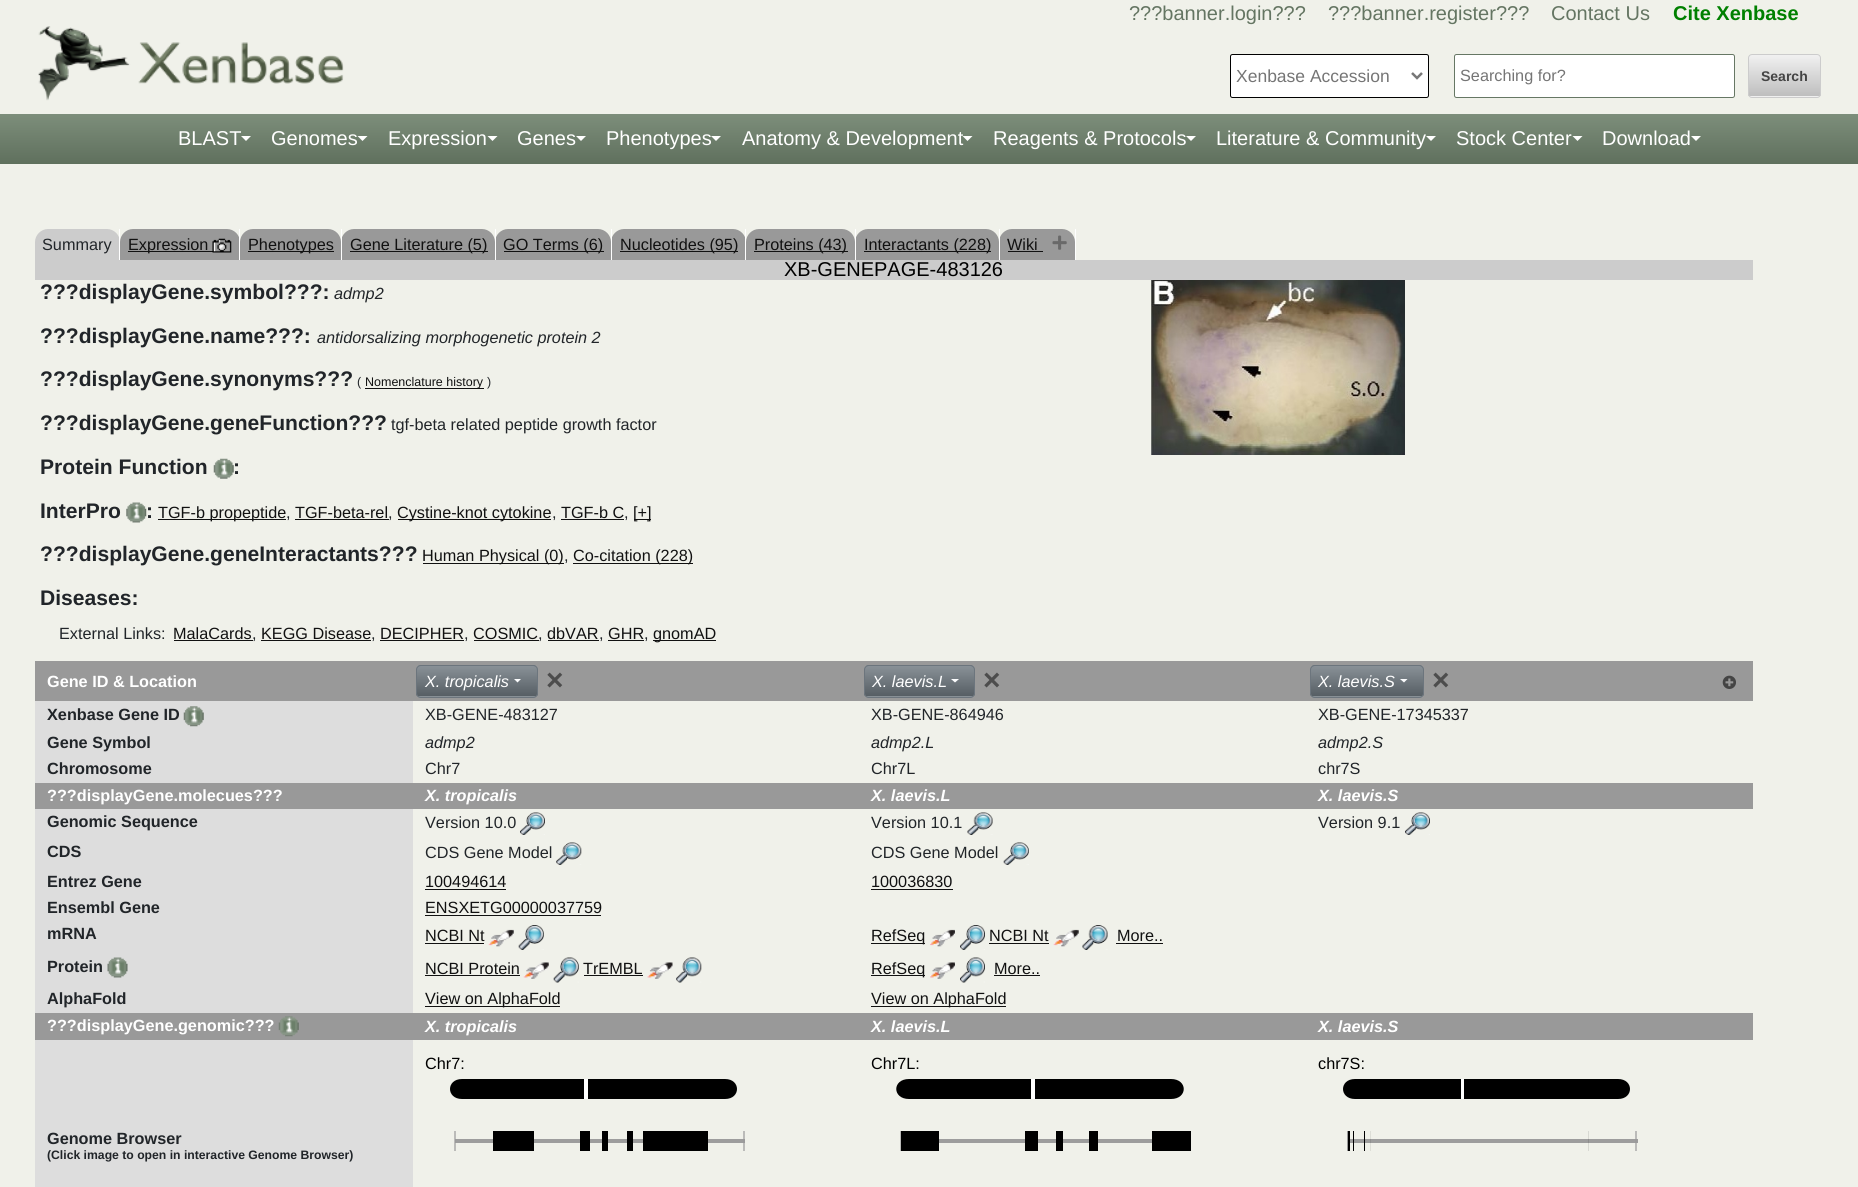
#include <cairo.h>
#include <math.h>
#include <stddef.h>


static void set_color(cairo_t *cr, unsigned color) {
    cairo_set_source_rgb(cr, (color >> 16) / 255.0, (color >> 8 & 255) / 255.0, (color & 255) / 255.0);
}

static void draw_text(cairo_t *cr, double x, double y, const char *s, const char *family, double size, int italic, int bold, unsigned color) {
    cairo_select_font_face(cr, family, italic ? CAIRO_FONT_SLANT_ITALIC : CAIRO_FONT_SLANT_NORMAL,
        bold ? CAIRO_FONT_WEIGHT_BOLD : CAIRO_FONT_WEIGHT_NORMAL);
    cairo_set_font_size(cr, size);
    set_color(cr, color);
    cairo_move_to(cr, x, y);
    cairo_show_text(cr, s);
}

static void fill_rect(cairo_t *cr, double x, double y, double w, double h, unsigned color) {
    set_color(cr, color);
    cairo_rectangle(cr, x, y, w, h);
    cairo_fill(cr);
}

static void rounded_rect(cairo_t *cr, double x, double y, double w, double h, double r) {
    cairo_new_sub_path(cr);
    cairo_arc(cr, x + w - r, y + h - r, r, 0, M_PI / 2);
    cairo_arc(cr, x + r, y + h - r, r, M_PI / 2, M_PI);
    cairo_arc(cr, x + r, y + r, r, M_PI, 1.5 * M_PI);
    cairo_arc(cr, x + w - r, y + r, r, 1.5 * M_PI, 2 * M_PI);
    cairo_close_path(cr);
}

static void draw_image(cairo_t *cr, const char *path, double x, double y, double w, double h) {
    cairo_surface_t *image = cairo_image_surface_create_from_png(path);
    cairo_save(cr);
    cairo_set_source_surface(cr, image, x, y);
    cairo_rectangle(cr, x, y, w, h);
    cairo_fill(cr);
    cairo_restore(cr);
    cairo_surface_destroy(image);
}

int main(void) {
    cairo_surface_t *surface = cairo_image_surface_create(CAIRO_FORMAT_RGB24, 1858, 1187);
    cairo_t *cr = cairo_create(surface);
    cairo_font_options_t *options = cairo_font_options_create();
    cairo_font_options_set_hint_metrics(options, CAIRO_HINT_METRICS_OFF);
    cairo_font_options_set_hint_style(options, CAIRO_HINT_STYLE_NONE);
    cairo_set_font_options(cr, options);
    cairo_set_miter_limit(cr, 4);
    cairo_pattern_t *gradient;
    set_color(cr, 0xF0F1EA);
    cairo_paint(cr);
    fill_rect(cr, 1588, 1131, 1, 20, 0xD8D9D3);
    fill_rect(cr, 1370, 1131, 1, 20, 0xDDDED7);
    draw_text(cr, 1129, 20, "?\077?banner.login?\077?", "Liberation Sans", 20, 0, 0, 0x647562);
    draw_text(cr, 1328, 20, "?\077?banner.register?\077?", "Liberation Sans", 20, 0, 0, 0x647562);
    draw_text(cr, 1551, 20, "Contact Us", "Liberation Sans", 20, 0, 0, 0x647562);
    draw_text(cr, 1673, 20, "Cite Xenbase", "Liberation Sans", 20, 0, 1, 0x008000);
    draw_image(cr, "assets/img1.png", 38, 26, 306, 75);
    set_color(cr, 0xFFFFFF);
    rounded_rect(cr, 1230.5, 54.5, 198, 43, 2);
    cairo_fill_preserve(cr);
    set_color(cr, 0x000000);
    cairo_set_line_width(cr, 1);
    cairo_stroke(cr);
    cairo_new_path(cr);
    cairo_move_to(cr, 1412, 73);
    cairo_line_to(cr, 1417, 78);
    cairo_line_to(cr, 1422, 73);
    set_color(cr, 0x777777);
    cairo_set_line_width(cr, 2.5);
    cairo_stroke(cr);
    draw_text(cr, 1236, 82, "Xenbase Accession", "Liberation Sans", 17.5, 0, 0, 0x757575);
    set_color(cr, 0xFFFFFF);
    rounded_rect(cr, 1454.5, 54.5, 280, 43, 2);
    cairo_fill_preserve(cr);
    set_color(cr, 0x667764);
    cairo_set_line_width(cr, 1);
    cairo_stroke(cr);
    draw_text(cr, 1460, 81, "Searching for?", "Liberation Sans", 16.25, 0, 0, 0x757575);
    cairo_save(cr);
    rounded_rect(cr, 1748, 54, 73, 44, 4);
    cairo_clip(cr);
    gradient = cairo_pattern_create_linear(1784, 55, 1784, 96);
    cairo_pattern_add_color_stop_rgba(gradient, 0, 0.945, 0.945, 0.945, 1);
    cairo_pattern_add_color_stop_rgba(gradient, 1, 0.745, 0.745, 0.745, 1);
    cairo_set_source(cr, gradient);
    cairo_pattern_destroy(gradient);
    cairo_rectangle(cr, 1748, 55, 73, 41);
    cairo_fill(cr);
    gradient = cairo_pattern_create_linear(1784, 96, 1784, 138);
    cairo_pattern_add_color_stop_rgba(gradient, 0, 0.945, 0.945, 0.945, 1);
    cairo_pattern_add_color_stop_rgba(gradient, 1, 0.745, 0.745, 0.745, 1);
    cairo_set_source(cr, gradient);
    cairo_pattern_destroy(gradient);
    cairo_rectangle(cr, 1748, 96, 73, 2);
    cairo_fill(cr);
    cairo_restore(cr);
    rounded_rect(cr, 1748.5, 54.5, 72, 43, 3.5);
    set_color(cr, 0xCCCCCC);
    cairo_stroke(cr);
    draw_text(cr, 1761, 81, "Search", "Liberation Sans", 14, 0, 1, 0x444444);
    gradient = cairo_pattern_create_linear(929, 114, 929, 164);
    cairo_pattern_add_color_stop_rgba(gradient, 0, 0.49, 0.557, 0.482, 1);
    cairo_pattern_add_color_stop_rgba(gradient, 1, 0.373, 0.439, 0.365, 1);
    cairo_set_source(cr, gradient);
    cairo_pattern_destroy(gradient);
    cairo_rectangle(cr, 0, 114, 1858, 50);
    cairo_fill(cr);
    draw_text(cr, 178, 145, "BLAST", "Liberation Sans", 20, 0, 0, 0xFFFFFF);
    cairo_new_path(cr);
    cairo_move_to(cr, 241, 136);
    cairo_line_to(cr, 251, 136);
    cairo_line_to(cr, 246, 141);
    cairo_close_path(cr);
    cairo_fill(cr);
    draw_text(cr, 271, 145, "Genomes", "Liberation Sans", 20, 0, 0, 0xFFFFFF);
    cairo_new_path(cr);
    cairo_move_to(cr, 357.5, 136);
    cairo_line_to(cr, 367.5, 136);
    cairo_line_to(cr, 362.5, 141);
    cairo_close_path(cr);
    cairo_fill(cr);
    draw_text(cr, 388, 145, "Expression", "Liberation Sans", 20, 0, 0, 0xFFFFFF);
    cairo_new_path(cr);
    cairo_move_to(cr, 487.5, 136);
    cairo_line_to(cr, 497.5, 136);
    cairo_line_to(cr, 492.5, 141);
    cairo_close_path(cr);
    cairo_fill(cr);
    draw_text(cr, 517, 145, "Genes", "Liberation Sans", 20, 0, 0, 0xFFFFFF);
    cairo_new_path(cr);
    cairo_move_to(cr, 576, 136);
    cairo_line_to(cr, 586, 136);
    cairo_line_to(cr, 581, 141);
    cairo_close_path(cr);
    cairo_fill(cr);
    draw_text(cr, 606, 145, "Phenotypes", "Liberation Sans", 20, 0, 0, 0xFFFFFF);
    cairo_new_path(cr);
    cairo_move_to(cr, 711, 136);
    cairo_line_to(cr, 721, 136);
    cairo_line_to(cr, 716, 141);
    cairo_close_path(cr);
    cairo_fill(cr);
    draw_text(cr, 742, 145, "Anatomy & Development", "Liberation Sans", 20, 0, 0, 0xFFFFFF);
    cairo_new_path(cr);
    cairo_move_to(cr, 962.5, 136);
    cairo_line_to(cr, 972.5, 136);
    cairo_line_to(cr, 967.5, 141);
    cairo_close_path(cr);
    cairo_fill(cr);
    draw_text(cr, 993, 145, "Reagents & Protocols", "Liberation Sans", 20, 0, 0, 0xFFFFFF);
    cairo_new_path(cr);
    cairo_move_to(cr, 1186, 136);
    cairo_line_to(cr, 1196, 136);
    cairo_line_to(cr, 1191, 141);
    cairo_close_path(cr);
    cairo_fill(cr);
    draw_text(cr, 1216, 145, "Literature & Community", "Liberation Sans", 20, 0, 0, 0xFFFFFF);
    cairo_new_path(cr);
    cairo_move_to(cr, 1426, 136);
    cairo_line_to(cr, 1436, 136);
    cairo_line_to(cr, 1431, 141);
    cairo_close_path(cr);
    cairo_fill(cr);
    draw_text(cr, 1456, 145, "Stock Center", "Liberation Sans", 20, 0, 0, 0xFFFFFF);
    cairo_new_path(cr);
    cairo_move_to(cr, 1572.5, 136);
    cairo_line_to(cr, 1582.5, 136);
    cairo_line_to(cr, 1577.5, 141);
    cairo_close_path(cr);
    cairo_fill(cr);
    draw_text(cr, 1602, 145, "Download", "Liberation Sans", 20, 0, 0, 0xFFFFFF);
    cairo_new_path(cr);
    cairo_move_to(cr, 1691, 136);
    cairo_line_to(cr, 1701, 136);
    cairo_line_to(cr, 1696, 141);
    cairo_close_path(cr);
    cairo_fill(cr);
    set_color(cr, 0xCCCCCC);
    cairo_new_path(cr);
    cairo_move_to(cr, 48, 229);
    cairo_line_to(cr, 107, 229);
    cairo_curve_to(cr, 114, 229, 120, 235, 120, 242);
    cairo_line_to(cr, 120, 260);
    cairo_line_to(cr, 35, 260);
    cairo_line_to(cr, 35, 242);
    cairo_curve_to(cr, 35, 235, 41, 229, 48, 229);
    cairo_close_path(cr);
    cairo_fill(cr);
    fill_rect(cr, 119, 229, 1, 32, 0xFFFFFF);
    draw_text(cr, 42, 250, "Summary", "Liberation Sans", 16.25, 0, 0, 0x212529);
    set_color(cr, 0x999999);
    cairo_new_path(cr);
    cairo_move_to(cr, 133, 229);
    cairo_line_to(cr, 227, 229);
    cairo_curve_to(cr, 234, 229, 240, 235, 240, 242);
    cairo_line_to(cr, 240, 260);
    cairo_line_to(cr, 120, 260);
    cairo_line_to(cr, 120, 242);
    cairo_curve_to(cr, 120, 235, 126, 229, 133, 229);
    cairo_close_path(cr);
    cairo_fill(cr);
    fill_rect(cr, 239, 229, 1, 32, 0xFFFFFF);
    fill_rect(cr, 128, 251, 85, 1, 0x111111);
    draw_text(cr, 128, 250, "Expression", "Liberation Sans", 16.25, 0, 0, 0x111111);
    draw_image(cr, "assets/img2.png", 212, 238, 20, 15);
    set_color(cr, 0x999999);
    cairo_new_path(cr);
    cairo_move_to(cr, 253, 229);
    cairo_line_to(cr, 328, 229);
    cairo_curve_to(cr, 335, 229, 341, 235, 341, 242);
    cairo_line_to(cr, 341, 260);
    cairo_line_to(cr, 240, 260);
    cairo_line_to(cr, 240, 242);
    cairo_curve_to(cr, 240, 235, 246, 229, 253, 229);
    cairo_close_path(cr);
    cairo_fill(cr);
    cairo_new_path(cr);
    cairo_move_to(cr, 354, 229);
    cairo_line_to(cr, 482, 229);
    cairo_curve_to(cr, 489, 229, 495, 235, 495, 242);
    cairo_line_to(cr, 495, 260);
    cairo_line_to(cr, 341, 260);
    cairo_line_to(cr, 341, 242);
    cairo_curve_to(cr, 341, 235, 347, 229, 354, 229);
    cairo_close_path(cr);
    cairo_fill(cr);
    fill_rect(cr, 341, 229, 1, 32, 0xFFFFFF);
    fill_rect(cr, 248, 251, 86, 1, 0x111111);
    draw_text(cr, 248, 250, "Phenotypes", "Liberation Sans", 16.25, 0, 0, 0x111111);
    set_color(cr, 0x999999);
    cairo_new_path(cr);
    cairo_move_to(cr, 508, 229);
    cairo_line_to(cr, 598, 229);
    cairo_curve_to(cr, 605, 229, 611, 235, 611, 242);
    cairo_line_to(cr, 611, 260);
    cairo_line_to(cr, 495, 260);
    cairo_line_to(cr, 495, 242);
    cairo_curve_to(cr, 495, 235, 501, 229, 508, 229);
    cairo_close_path(cr);
    cairo_fill(cr);
    fill_rect(cr, 495, 229, 1, 32, 0xFFFFFF);
    fill_rect(cr, 350, 251, 138, 1, 0x111111);
    draw_text(cr, 350, 250, "Gene Literature (5)", "Liberation Sans", 16.25, 0, 0, 0x111111);
    set_color(cr, 0x999999);
    cairo_new_path(cr);
    cairo_move_to(cr, 624, 229);
    cairo_line_to(cr, 733, 229);
    cairo_curve_to(cr, 740, 229, 746, 235, 746, 242);
    cairo_line_to(cr, 746, 260);
    cairo_line_to(cr, 611, 260);
    cairo_line_to(cr, 611, 242);
    cairo_curve_to(cr, 611, 235, 617, 229, 624, 229);
    cairo_close_path(cr);
    cairo_fill(cr);
    fill_rect(cr, 611, 229, 1, 32, 0xFFFFFF);
    fill_rect(cr, 504, 251, 100, 1, 0x111111);
    draw_text(cr, 503, 250, "GO Terms (6)", "Liberation Sans", 16.25, 0, 0, 0x111111);
    fill_rect(cr, 745, 229, 1, 32, 0xFFFFFF);
    fill_rect(cr, 620, 251, 118, 1, 0x111111);
    draw_text(cr, 620, 250, "Nucleotides (95)", "Liberation Sans", 16.25, 0, 0, 0x111111);
    set_color(cr, 0x999999);
    cairo_new_path(cr);
    cairo_move_to(cr, 759, 229);
    cairo_line_to(cr, 842, 229);
    cairo_curve_to(cr, 849, 229, 855, 235, 855, 242);
    cairo_line_to(cr, 855, 260);
    cairo_line_to(cr, 746, 260);
    cairo_line_to(cr, 746, 242);
    cairo_curve_to(cr, 746, 235, 752, 229, 759, 229);
    cairo_close_path(cr);
    cairo_fill(cr);
    cairo_new_path(cr);
    cairo_move_to(cr, 868, 229);
    cairo_line_to(cr, 986, 229);
    cairo_curve_to(cr, 993, 229, 999, 235, 999, 242);
    cairo_line_to(cr, 999, 260);
    cairo_line_to(cr, 855, 260);
    cairo_line_to(cr, 855, 242);
    cairo_curve_to(cr, 855, 235, 861, 229, 868, 229);
    cairo_close_path(cr);
    cairo_fill(cr);
    fill_rect(cr, 855, 229, 1, 32, 0xFFFFFF);
    fill_rect(cr, 754, 251, 94, 1, 0x111111);
    draw_text(cr, 754, 250, "Proteins (43)", "Liberation Sans", 16.25, 0, 0, 0x111111);
    set_color(cr, 0x999999);
    cairo_new_path(cr);
    cairo_move_to(cr, 1012, 229);
    cairo_line_to(cr, 1062, 229);
    cairo_curve_to(cr, 1069, 229, 1075, 235, 1075, 242);
    cairo_line_to(cr, 1075, 260);
    cairo_line_to(cr, 999, 260);
    cairo_line_to(cr, 999, 242);
    cairo_curve_to(cr, 999, 235, 1005, 229, 1012, 229);
    cairo_close_path(cr);
    cairo_fill(cr);
    fill_rect(cr, 999, 229, 1, 32, 0xFFFFFF);
    fill_rect(cr, 864, 251, 127, 1, 0x111111);
    draw_text(cr, 864, 250, "Interactants (228)", "Liberation Sans", 16.25, 0, 0, 0x111111);
    fill_rect(cr, 1075, 229, 1, 32, 0xFFFFFF);
    draw_text(cr, 1007, 250, "Wiki", "Liberation Sans", 16.25, 0, 0, 0x111111);
    fill_rect(cr, 1008, 251, 35, 1, 0x111111);
    draw_image(cr, "assets/img3.png", 1052, 235, 15, 15);
    fill_rect(cr, 35, 260, 1718, 20, 0xCCCCCC);
    draw_text(cr, 784, 276, "XB-GENEPAGE-483126", "Liberation Sans", 20, 0, 0, 0x000000);
    draw_text(cr, 40, 299, "?\077?displayGene.symbol?\077?:", "Liberation Sans", 21.1, 0, 1, 0x212529);
    draw_text(cr, 334, 299, "admp2", "Liberation Sans", 16.25, 1, 0, 0x212529);
    draw_text(cr, 40, 343, "?\077?displayGene.name?\077?:", "Liberation Sans", 21.1, 0, 1, 0x212529);
    draw_text(cr, 317, 343, "antidorsalizing morphogenetic protein 2", "Liberation Sans", 16.25, 1, 0, 0x212529);
    draw_text(cr, 40, 386, "?\077?displayGene.synonyms?\077?", "Liberation Sans", 21.1, 0, 1, 0x212529);
    draw_text(cr, 357, 386, "(", "Liberation Sans", 12.5, 0, 0, 0x212529);
    fill_rect(cr, 365, 388, 119, 1, 0x111111);
    draw_text(cr, 365, 386, "Nomenclature history", "Liberation Sans", 12.5, 0, 0, 0x111111);
    draw_text(cr, 487, 386, ")", "Liberation Sans", 12.5, 0, 0, 0x212529);
    draw_text(cr, 40, 430, "?\077?displayGene.geneFunction?\077?", "Liberation Sans", 21.1, 0, 1, 0x212529);
    draw_text(cr, 391, 430, "tgf-beta related peptide growth factor", "Liberation Sans", 16.25, 0, 0, 0x212529);
    draw_text(cr, 40, 474, "Protein Function", "Liberation Sans", 21.1, 0, 1, 0x212529);
    draw_image(cr, "assets/img4.png", 213, 458, 21, 21);
    draw_text(cr, 233, 474, ":", "Liberation Sans", 21.1, 0, 1, 0x212529);
    draw_text(cr, 40, 518, "InterPro", "Liberation Sans", 21.1, 0, 1, 0x212529);
    draw_image(cr, "assets/img5.png", 126, 502, 21, 21);
    draw_text(cr, 146, 518, ":", "Liberation Sans", 21.1, 0, 1, 0x212529);
    fill_rect(cr, 158, 519, 128, 1, 0x111111);
    draw_text(cr, 158, 518, "TGF-b propeptide", "Liberation Sans", 16.25, 0, 0, 0x111111);
    draw_text(cr, 286, 518, ",", "Liberation Sans", 16.25, 0, 0, 0x212529);
    draw_text(cr, 295, 518, "TGF-beta-rel", "Liberation Sans", 16.25, 0, 0, 0x111111);
    draw_text(cr, 388, 518, ",", "Liberation Sans", 16.25, 0, 0, 0x212529);
    fill_rect(cr, 295, 519, 94, 1, 0x111111);
    fill_rect(cr, 398, 519, 153, 1, 0x111111);
    draw_text(cr, 397, 518, "Cystine-knot cytokine", "Liberation Sans", 16.25, 0, 0, 0x111111);
    draw_text(cr, 552, 518, ",", "Liberation Sans", 16.25, 0, 0, 0x212529);
    draw_text(cr, 561, 518, "TGF-b C", "Liberation Sans", 16.25, 0, 0, 0x111111);
    draw_text(cr, 624, 518, ",", "Liberation Sans", 16.25, 0, 0, 0x212529);
    fill_rect(cr, 561, 519, 63, 1, 0x111111);
    fill_rect(cr, 634, 519, 17, 1, 0x111111);
    draw_text(cr, 633, 518, "[+]", "Liberation Sans", 16.25, 0, 0, 0x111111);
    draw_text(cr, 40, 561, "?\077?displayGene.geneInteractants?\077?", "Liberation Sans", 21.1, 0, 1, 0x212529);
    fill_rect(cr, 423, 563, 141, 1, 0x111111);
    draw_text(cr, 422, 561, "Human Physical (0)", "Liberation Sans", 16.25, 0, 0, 0x111111);
    draw_text(cr, 564, 561, ",", "Liberation Sans", 16.25, 0, 0, 0x212529);
    fill_rect(cr, 573, 563, 120, 1, 0x111111);
    draw_text(cr, 573, 561, "Co-citation (228)", "Liberation Sans", 16.25, 0, 0, 0x111111);
    draw_text(cr, 40, 605, "Diseases:", "Liberation Sans", 21.1, 0, 1, 0x212529);
    draw_text(cr, 59, 639, "External Links:", "Liberation Sans", 16.25, 0, 0, 0x212529);
    draw_text(cr, 173, 639, "MalaCards", "Liberation Sans", 16.25, 0, 0, 0x111111);
    fill_rect(cr, 174, 640, 79, 1, 0x111111);
    draw_text(cr, 252, 639, ",", "Liberation Sans", 16.25, 0, 0, 0x212529);
    draw_text(cr, 261, 639, "KEGG Disease", "Liberation Sans", 16.25, 0, 0, 0x111111);
    fill_rect(cr, 261, 640, 110, 1, 0x111111);
    draw_text(cr, 371, 639, ",", "Liberation Sans", 16.25, 0, 0, 0x212529);
    draw_text(cr, 380, 639, "DECIPHER", "Liberation Sans", 16.25, 0, 0, 0x111111);
    fill_rect(cr, 380, 640, 84, 1, 0x111111);
    draw_text(cr, 464, 639, ",", "Liberation Sans", 16.25, 0, 0, 0x212529);
    draw_text(cr, 473, 639, "COSMIC", "Liberation Sans", 16.25, 0, 0, 0x111111);
    fill_rect(cr, 474, 640, 65, 1, 0x111111);
    draw_text(cr, 538, 639, ",", "Liberation Sans", 16.25, 0, 0, 0x212529);
    draw_text(cr, 547, 639, "dbVAR", "Liberation Sans", 16.25, 0, 0, 0x111111);
    fill_rect(cr, 548, 640, 51, 1, 0x111111);
    draw_text(cr, 599, 639, ",", "Liberation Sans", 16.25, 0, 0, 0x212529);
    draw_text(cr, 608, 639, "GHR", "Liberation Sans", 16.25, 0, 0, 0x111111);
    fill_rect(cr, 608, 640, 36, 1, 0x111111);
    draw_text(cr, 644, 639, ",", "Liberation Sans", 16.25, 0, 0, 0x212529);
    fill_rect(cr, 653, 640, 63, 1, 0x111111);
    draw_text(cr, 653, 639, "gnomAD", "Liberation Sans", 16.25, 0, 0, 0x111111);
    draw_image(cr, "assets/img6.png", 1151, 280, 254, 175);
    fill_rect(cr, 35, 661, 1718, 40, 0x999999);
    draw_text(cr, 47, 687, "Gene ID & Location", "Liberation Sans", 16.25, 0, 1, 0xFFFFFF);
    set_color(cr, 0x6C757D);
    rounded_rect(cr, 416, 665, 122, 33, 5);
    cairo_fill(cr);
    cairo_save(cr);
    rounded_rect(cr, 416, 665, 122, 33, 5);
    cairo_clip(cr);
    gradient = cairo_pattern_create_linear(477, 666, 477, 696);
    cairo_pattern_add_color_stop_rgba(gradient, 0, 1, 1, 1, 0.2);
    cairo_pattern_add_color_stop_rgba(gradient, 1, 0, 0, 0, 0.2);
    cairo_set_source(cr, gradient);
    cairo_pattern_destroy(gradient);
    cairo_rectangle(cr, 416, 666, 122, 30);
    cairo_fill(cr);
    gradient = cairo_pattern_create_linear(477, 696, 477, 726);
    cairo_pattern_add_color_stop_rgba(gradient, 0, 1, 1, 1, 0.2);
    cairo_pattern_add_color_stop_rgba(gradient, 1, 0, 0, 0, 0.2);
    cairo_set_source(cr, gradient);
    cairo_pattern_destroy(gradient);
    cairo_rectangle(cr, 416, 696, 122, 2);
    cairo_fill(cr);
    cairo_restore(cr);
    rounded_rect(cr, 416.5, 665.5, 121, 32, 4.5);
    cairo_stroke(cr);
    draw_text(cr, 425, 687, "X. tropicalis", "Liberation Sans", 16.25, 1, 0, 0xFFFFFF);
    set_color(cr, 0xFCFDFE);
    cairo_new_path(cr);
    cairo_move_to(cr, 514, 679);
    cairo_line_to(cr, 521, 679);
    cairo_line_to(cr, 517.5, 682.5);
    cairo_close_path(cr);
    cairo_fill(cr);
    draw_text(cr, 546, 690, "×", "Liberation Sans", 30, 0, 1, 0x4D4D4D);
    set_color(cr, 0x6C757D);
    rounded_rect(cr, 864, 665, 111, 33, 5);
    cairo_fill(cr);
    cairo_save(cr);
    rounded_rect(cr, 864, 665, 111, 33, 5);
    cairo_clip(cr);
    gradient = cairo_pattern_create_linear(919, 666, 919, 696);
    cairo_pattern_add_color_stop_rgba(gradient, 0, 1, 1, 1, 0.2);
    cairo_pattern_add_color_stop_rgba(gradient, 1, 0, 0, 0, 0.2);
    cairo_set_source(cr, gradient);
    cairo_pattern_destroy(gradient);
    cairo_rectangle(cr, 864, 666, 111, 30);
    cairo_fill(cr);
    gradient = cairo_pattern_create_linear(919, 696, 919, 726);
    cairo_pattern_add_color_stop_rgba(gradient, 0, 1, 1, 1, 0.2);
    cairo_pattern_add_color_stop_rgba(gradient, 1, 0, 0, 0, 0.2);
    cairo_set_source(cr, gradient);
    cairo_pattern_destroy(gradient);
    cairo_rectangle(cr, 864, 696, 111, 2);
    cairo_fill(cr);
    cairo_restore(cr);
    rounded_rect(cr, 864.5, 665.5, 110, 32, 4.5);
    cairo_stroke(cr);
    draw_text(cr, 872, 687, "X. laevis.L", "Liberation Sans", 16.25, 1, 0, 0xFFFFFF);
    set_color(cr, 0xFCFDFE);
    cairo_new_path(cr);
    cairo_move_to(cr, 951, 679);
    cairo_line_to(cr, 959, 679);
    cairo_line_to(cr, 955, 682.5);
    cairo_close_path(cr);
    cairo_fill(cr);
    draw_text(cr, 983, 690, "×", "Liberation Sans", 30, 0, 1, 0x4D4D4D);
    set_color(cr, 0x6C757D);
    rounded_rect(cr, 1310, 665, 114, 33, 5);
    cairo_fill(cr);
    cairo_save(cr);
    rounded_rect(cr, 1310, 665, 114, 33, 5);
    cairo_clip(cr);
    gradient = cairo_pattern_create_linear(1367, 666, 1367, 696);
    cairo_pattern_add_color_stop_rgba(gradient, 0, 1, 1, 1, 0.2);
    cairo_pattern_add_color_stop_rgba(gradient, 1, 0, 0, 0, 0.2);
    cairo_set_source(cr, gradient);
    cairo_pattern_destroy(gradient);
    cairo_rectangle(cr, 1310, 666, 114, 30);
    cairo_fill(cr);
    gradient = cairo_pattern_create_linear(1367, 696, 1367, 726);
    cairo_pattern_add_color_stop_rgba(gradient, 0, 1, 1, 1, 0.2);
    cairo_pattern_add_color_stop_rgba(gradient, 1, 0, 0, 0, 0.2);
    cairo_set_source(cr, gradient);
    cairo_pattern_destroy(gradient);
    cairo_rectangle(cr, 1310, 696, 114, 2);
    cairo_fill(cr);
    cairo_restore(cr);
    rounded_rect(cr, 1310.5, 665.5, 113, 32, 4.5);
    cairo_stroke(cr);
    draw_text(cr, 1318, 687, "X. laevis.S", "Liberation Sans", 16.25, 1, 0, 0xFFFFFF);
    set_color(cr, 0xFCFDFE);
    cairo_new_path(cr);
    cairo_move_to(cr, 1400, 679);
    cairo_line_to(cr, 1407.5, 679);
    cairo_line_to(cr, 1404, 682.5);
    cairo_close_path(cr);
    cairo_fill(cr);
    draw_text(cr, 1432, 690, "×", "Liberation Sans", 30, 0, 1, 0x4D4D4D);
    draw_image(cr, "assets/img7.png", 1722, 675, 14, 14);
    fill_rect(cr, 35, 701, 378, 82, 0xDDDDDD);
    draw_text(cr, 47, 720, "Xenbase Gene ID", "Liberation Sans", 16.25, 0, 1, 0x212529);
    draw_image(cr, "assets/img8.png", 183, 706, 21, 21);
    draw_text(cr, 425, 720, "XB-GENE-483127", "Liberation Sans", 16.25, 0, 0, 0x212529);
    draw_text(cr, 871, 720, "XB-GENE-864946", "Liberation Sans", 16.25, 0, 0, 0x212529);
    draw_text(cr, 1318, 720, "XB-GENE-17345337", "Liberation Sans", 16.25, 0, 0, 0x212529);
    draw_text(cr, 47, 748, "Gene Symbol", "Liberation Sans", 16.25, 0, 1, 0x212529);
    draw_text(cr, 425, 748, "admp2", "Liberation Sans", 16.25, 1, 0, 0x212529);
    draw_text(cr, 871, 748, "admp2.L", "Liberation Sans", 16.25, 1, 0, 0x212529);
    draw_text(cr, 1318, 748, "admp2.S", "Liberation Sans", 16.25, 1, 0, 0x212529);
    draw_text(cr, 47, 774, "Chromosome", "Liberation Sans", 16.25, 0, 1, 0x212529);
    draw_text(cr, 425, 774, "Chr7", "Liberation Sans", 16.25, 0, 0, 0x212529);
    draw_text(cr, 871, 774, "Chr7L", "Liberation Sans", 16.25, 0, 0, 0x212529);
    draw_text(cr, 1318, 774, "chr7S", "Liberation Sans", 16.25, 0, 0, 0x212529);
    fill_rect(cr, 35, 783, 1718, 26, 0x999999);
    draw_text(cr, 47, 801, "?\077?displayGene.molecues?\077?", "Liberation Sans", 16.25, 0, 1, 0xFFFFFF);
    draw_text(cr, 425, 801, "X. tropicalis", "Liberation Sans", 16.25, 1, 1, 0xFFFFFF);
    draw_text(cr, 871, 801, "X. laevis.L", "Liberation Sans", 16.25, 1, 1, 0xFFFFFF);
    draw_text(cr, 1318, 801, "X. laevis.S", "Liberation Sans", 16.25, 1, 1, 0xFFFFFF);
    fill_rect(cr, 35, 809, 378, 204, 0xDDDDDD);
    draw_text(cr, 47, 827, "Genomic Sequence", "Liberation Sans", 16.25, 0, 1, 0x212529);
    draw_text(cr, 425, 828, "Version 10.0", "Liberation Sans", 16.25, 0, 0, 0x212529);
    draw_image(cr, "assets/img9.png", 520, 812, 25, 23);
    draw_text(cr, 871, 828, "Version 10.1", "Liberation Sans", 16.25, 0, 0, 0x212529);
    draw_image(cr, "assets/img10.png", 967, 812, 26, 23);
    draw_text(cr, 1318, 828, "Version 9.1", "Liberation Sans", 16.25, 0, 0, 0x212529);
    draw_image(cr, "assets/img9.png", 1405, 812, 25, 23);
    draw_text(cr, 47, 857, "CDS", "Liberation Sans", 16.25, 0, 1, 0x212529);
    draw_text(cr, 425, 858, "CDS Gene Model", "Liberation Sans", 16.25, 0, 0, 0x212529);
    draw_image(cr, "assets/img11.png", 556, 842, 26, 23);
    draw_text(cr, 871, 858, "CDS Gene Model", "Liberation Sans", 16.25, 0, 0, 0x212529);
    draw_image(cr, "assets/img12.png", 1003, 842, 26, 23);
    draw_text(cr, 47, 887, "Entrez Gene", "Liberation Sans", 16.25, 0, 1, 0x212529);
    draw_text(cr, 425, 887, "100494614", "Liberation Sans", 16.25, 0, 0, 0x111111);
    fill_rect(cr, 425, 889, 81, 1, 0x111111);
    draw_text(cr, 871, 887, "100036830", "Liberation Sans", 16.25, 0, 0, 0x111111);
    fill_rect(cr, 871, 889, 82, 1, 0x111111);
    draw_text(cr, 47, 913, "Ensembl Gene", "Liberation Sans", 16.25, 0, 1, 0x212529);
    draw_text(cr, 425, 913, "ENSXETG00000037759", "Liberation Sans", 16.25, 0, 0, 0x111111);
    fill_rect(cr, 425, 915, 176, 1, 0x111111);
    draw_text(cr, 47, 939, "mRNA", "Liberation Sans", 16.25, 0, 1, 0x212529);
    draw_text(cr, 425, 941, "NCBI Nt", "Liberation Sans", 16.25, 0, 0, 0x111111);
    fill_rect(cr, 425, 943, 59, 1, 0x111111);
    draw_image(cr, "assets/img13.png", 488, 929, 26, 18);
    draw_image(cr, "assets/img14.png", 518, 925, 26, 25);
    fill_rect(cr, 871, 943, 54, 1, 0x111111);
    draw_text(cr, 871, 941, "RefSeq", "Liberation Sans", 16.25, 0, 0, 0x111111);
    draw_image(cr, "assets/img15.png", 930, 929, 25, 18);
    draw_image(cr, "assets/img16.png", 960, 925, 25, 25);
    draw_text(cr, 989, 941, "NCBI Nt", "Liberation Sans", 16.25, 0, 0, 0x111111);
    fill_rect(cr, 989, 943, 60, 1, 0x111111);
    draw_image(cr, "assets/img13.png", 1053, 929, 26, 18);
    draw_image(cr, "assets/img17.png", 1082, 925, 26, 25);
    draw_text(cr, 1117, 941, "More..", "Liberation Sans", 16.25, 0, 0, 0x111111);
    fill_rect(cr, 1116, 943, 47, 1, 0x111111);
    draw_text(cr, 47, 972, "Protein", "Liberation Sans", 16.25, 0, 1, 0x212529);
    draw_image(cr, "assets/img18.png", 107, 957, 21, 21);
    draw_text(cr, 425, 974, "NCBI Protein", "Liberation Sans", 16.25, 0, 0, 0x111111);
    fill_rect(cr, 425, 975, 95, 1, 0x111111);
    draw_image(cr, "assets/img19.png", 523, 962, 26, 17);
    draw_image(cr, "assets/img20.png", 553, 957, 26, 26);
    draw_text(cr, 583, 974, "TrEMBL", "Liberation Sans", 16.25, 0, 0, 0x111111);
    fill_rect(cr, 584, 975, 59, 1, 0x111111);
    draw_image(cr, "assets/img21.png", 647, 962, 26, 17);
    draw_image(cr, "assets/img22.png", 676, 957, 26, 26);
    fill_rect(cr, 871, 975, 54, 1, 0x111111);
    draw_text(cr, 871, 974, "RefSeq", "Liberation Sans", 16.25, 0, 0, 0x111111);
    draw_image(cr, "assets/img23.png", 930, 962, 25, 17);
    draw_image(cr, "assets/img24.png", 960, 957, 25, 26);
    draw_text(cr, 994, 974, "More..", "Liberation Sans", 16.25, 0, 0, 0x111111);
    fill_rect(cr, 994, 975, 46, 1, 0x111111);
    draw_text(cr, 47, 1004, "AlphaFold", "Liberation Sans", 16.25, 0, 1, 0x212529);
    fill_rect(cr, 425, 1006, 135, 1, 0x111111);
    draw_text(cr, 425, 1004, "View on AlphaFold", "Liberation Sans", 16.25, 0, 0, 0x111111);
    fill_rect(cr, 871, 1006, 135, 1, 0x111111);
    draw_text(cr, 871, 1004, "View on AlphaFold", "Liberation Sans", 16.25, 0, 0, 0x111111);
    fill_rect(cr, 35, 1013, 1718, 27, 0x999999);
    draw_text(cr, 47, 1031, "?\077?displayGene.genomic?\077?", "Liberation Sans", 16.25, 0, 1, 0xFFFFFF);
    draw_image(cr, "assets/img25.png", 278, 1016, 21, 21);
    draw_text(cr, 425, 1032, "X. tropicalis", "Liberation Sans", 16.25, 1, 1, 0xFFFFFF);
    draw_text(cr, 871, 1032, "X. laevis.L", "Liberation Sans", 16.25, 1, 1, 0xFFFFFF);
    draw_text(cr, 1318, 1032, "X. laevis.S", "Liberation Sans", 16.25, 1, 1, 0xFFFFFF);
    draw_text(cr, 425, 1069, "Chr7:", "Liberation Sans", 16.25, 0, 0, 0x000000);
    cairo_new_path(cr);
    cairo_move_to(cr, 462, 1079);
    cairo_line_to(cr, 725, 1079);
    cairo_curve_to(cr, 741, 1079, 741, 1099, 725, 1099);
    cairo_line_to(cr, 462, 1099);
    cairo_curve_to(cr, 446, 1099, 446, 1079, 462, 1079);
    cairo_close_path(cr);
    cairo_fill(cr);
    fill_rect(cr, 584, 1079, 4, 20, 0xFFFFFF);
    fill_rect(cr, 455, 1139, 290, 4, 0x9D9D9D);
    cairo_new_path(cr);
    cairo_move_to(cr, 455, 1131);
    cairo_line_to(cr, 455, 1151);
    set_color(cr, 0x999999);
    cairo_set_line_width(cr, 1.2);
    cairo_stroke(cr);
    fill_rect(cr, 493, 1131, 41, 20, 0x000000);
    fill_rect(cr, 580, 1131, 10, 20, 0x000000);
    fill_rect(cr, 602, 1131, 6, 20, 0x000000);
    fill_rect(cr, 627, 1131, 6, 20, 0x000000);
    fill_rect(cr, 643, 1131, 65, 20, 0x000000);
    cairo_new_path(cr);
    cairo_move_to(cr, 744, 1131);
    cairo_line_to(cr, 744, 1151);
    set_color(cr, 0x999999);
    cairo_stroke(cr);
    set_color(cr, 0x000000);
    cairo_new_path(cr);
    cairo_move_to(cr, 909, 1079);
    cairo_line_to(cr, 1171, 1079);
    cairo_curve_to(cr, 1188, 1079, 1188, 1099, 1171, 1099);
    cairo_line_to(cr, 909, 1099);
    cairo_curve_to(cr, 892, 1099, 892, 1079, 909, 1079);
    cairo_close_path(cr);
    cairo_fill(cr);
    fill_rect(cr, 1031, 1079, 4, 20, 0xFFFFFF);
    draw_text(cr, 871, 1069, "Chr7L:", "Liberation Sans", 16.25, 0, 0, 0x000000);
    fill_rect(cr, 939, 1139, 213, 4, 0x9D9D9D);
    cairo_new_path(cr);
    cairo_move_to(cr, 901, 1131);
    cairo_line_to(cr, 901, 1151);
    set_color(cr, 0x999999);
    cairo_stroke(cr);
    fill_rect(cr, 901, 1131, 38, 20, 0x000000);
    fill_rect(cr, 1025, 1131, 13, 20, 0x000000);
    fill_rect(cr, 1056, 1131, 7, 20, 0x000000);
    fill_rect(cr, 1089, 1131, 9, 20, 0x000000);
    fill_rect(cr, 1152, 1131, 39, 20, 0x000000);
    cairo_new_path(cr);
    cairo_move_to(cr, 1355, 1079);
    cairo_line_to(cr, 1618, 1079);
    cairo_curve_to(cr, 1634, 1079, 1634, 1099, 1618, 1099);
    cairo_line_to(cr, 1355, 1099);
    cairo_curve_to(cr, 1339, 1099, 1339, 1079, 1355, 1079);
    cairo_close_path(cr);
    cairo_fill(cr);
    fill_rect(cr, 1461, 1079, 3, 20, 0xFFFFFF);
    draw_text(cr, 1318, 1069, "chr7S:", "Liberation Sans", 16.25, 0, 0, 0x000000);
    fill_rect(cr, 1348, 1139, 290, 4, 0x9D9D9D);
    fill_rect(cr, 1588, 1139, 1, 4, 0x8D8D8D);
    fill_rect(cr, 1370, 1139, 1, 4, 0x909090);
    fill_rect(cr, 1347, 1131, 1, 20, 0x999999);
    cairo_new_path(cr);
    cairo_move_to(cr, 1636, 1131);
    cairo_line_to(cr, 1636, 1151);
    cairo_stroke(cr);
    fill_rect(cr, 1348, 1131, 2, 20, 0x000000);
    fill_rect(cr, 1353, 1131, 1, 20, 0x000000);
    fill_rect(cr, 1364, 1131, 1, 20, 0x000000);
    fill_rect(cr, 35, 1040, 378, 147, 0xDDDDDD);
    draw_text(cr, 47, 1144, "Genome Browser", "Liberation Sans", 16.25, 0, 1, 0x212529);
    draw_text(cr, 47, 1159, "(Click image to open in interactive Genome Browser)", "Liberation Sans", 12.2, 0, 1, 0x212529);
    cairo_surface_write_to_png(surface, "output.png");
    cairo_font_options_destroy(options);
    cairo_destroy(cr);
    cairo_surface_destroy(surface);
    return 0;
}
